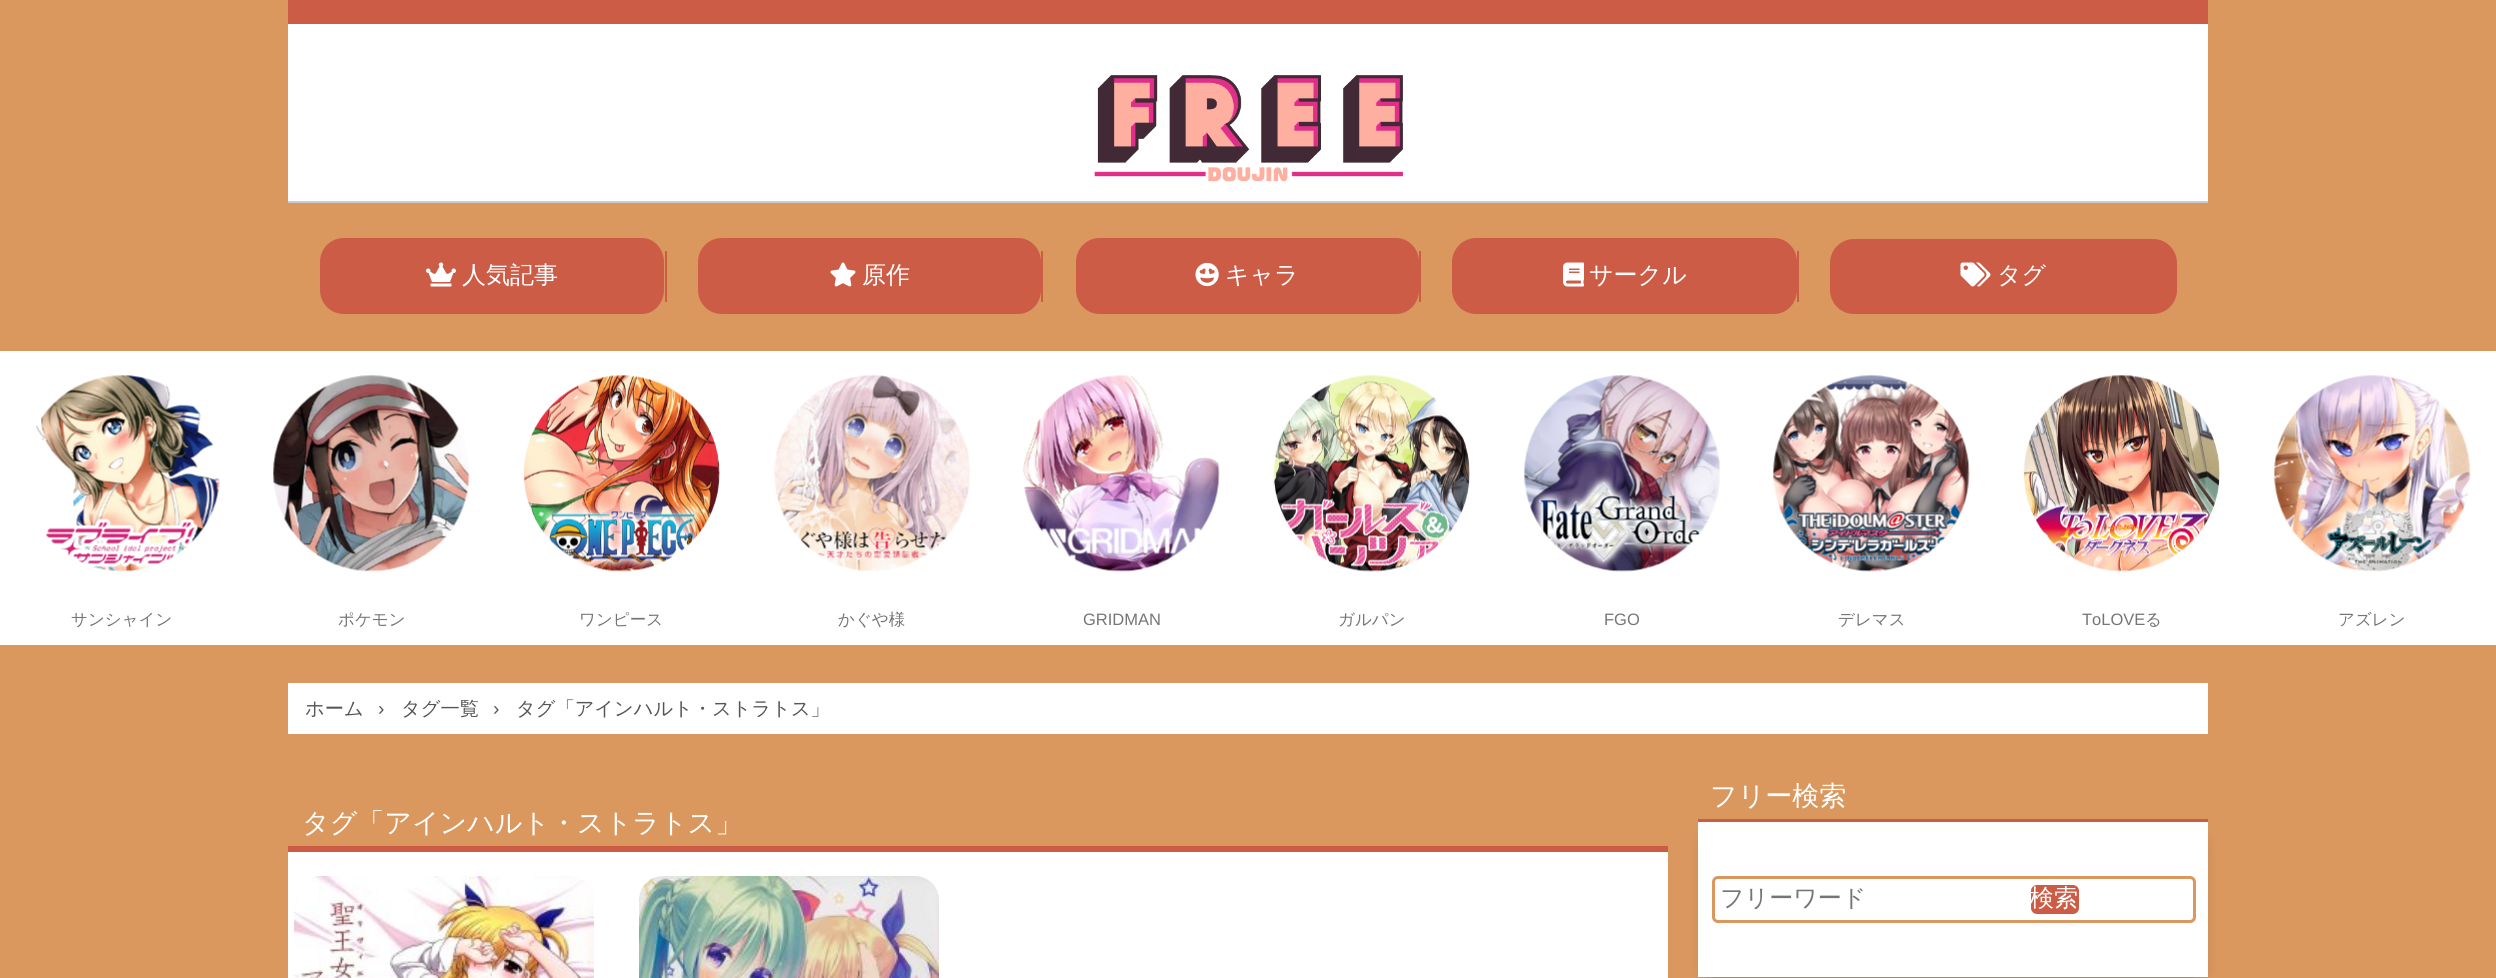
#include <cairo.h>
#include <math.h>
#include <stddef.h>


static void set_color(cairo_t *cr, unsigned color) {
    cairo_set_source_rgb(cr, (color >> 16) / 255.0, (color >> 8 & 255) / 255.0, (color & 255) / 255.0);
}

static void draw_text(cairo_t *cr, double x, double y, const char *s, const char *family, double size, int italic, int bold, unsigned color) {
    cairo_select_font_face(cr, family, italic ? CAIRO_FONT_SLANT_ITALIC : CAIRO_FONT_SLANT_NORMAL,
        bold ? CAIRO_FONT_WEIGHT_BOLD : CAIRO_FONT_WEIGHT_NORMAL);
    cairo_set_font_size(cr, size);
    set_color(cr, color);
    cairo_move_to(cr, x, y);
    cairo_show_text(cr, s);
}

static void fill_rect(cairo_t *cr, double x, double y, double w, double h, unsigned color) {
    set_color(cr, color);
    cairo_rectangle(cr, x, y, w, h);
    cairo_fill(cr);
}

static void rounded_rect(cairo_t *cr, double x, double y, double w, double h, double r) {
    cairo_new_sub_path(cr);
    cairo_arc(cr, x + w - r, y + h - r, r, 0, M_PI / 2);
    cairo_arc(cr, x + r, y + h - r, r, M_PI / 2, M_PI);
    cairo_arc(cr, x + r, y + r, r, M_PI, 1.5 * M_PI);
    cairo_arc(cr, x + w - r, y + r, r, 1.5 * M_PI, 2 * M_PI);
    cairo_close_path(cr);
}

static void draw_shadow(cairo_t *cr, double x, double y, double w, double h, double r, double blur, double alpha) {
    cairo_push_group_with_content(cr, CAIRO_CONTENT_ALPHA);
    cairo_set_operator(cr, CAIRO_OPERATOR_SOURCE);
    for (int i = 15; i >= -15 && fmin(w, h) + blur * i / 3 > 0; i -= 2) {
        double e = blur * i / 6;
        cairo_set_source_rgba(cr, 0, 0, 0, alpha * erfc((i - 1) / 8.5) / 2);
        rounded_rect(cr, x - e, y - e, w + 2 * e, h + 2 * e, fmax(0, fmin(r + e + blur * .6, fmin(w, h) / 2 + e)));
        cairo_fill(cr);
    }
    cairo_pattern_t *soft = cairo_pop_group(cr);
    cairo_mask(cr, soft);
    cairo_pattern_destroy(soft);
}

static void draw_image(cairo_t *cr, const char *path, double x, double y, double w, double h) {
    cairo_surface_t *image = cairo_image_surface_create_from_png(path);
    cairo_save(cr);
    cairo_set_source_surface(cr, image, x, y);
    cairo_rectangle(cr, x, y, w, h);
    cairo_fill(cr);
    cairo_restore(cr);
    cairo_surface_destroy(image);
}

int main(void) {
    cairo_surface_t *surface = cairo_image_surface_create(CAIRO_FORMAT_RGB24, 2496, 978);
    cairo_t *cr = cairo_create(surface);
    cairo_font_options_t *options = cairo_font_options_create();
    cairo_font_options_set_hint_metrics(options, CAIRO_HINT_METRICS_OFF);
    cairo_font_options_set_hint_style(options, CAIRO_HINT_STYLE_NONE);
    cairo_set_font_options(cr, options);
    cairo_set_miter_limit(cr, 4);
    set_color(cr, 0xDA975E);
    cairo_paint(cr);
    fill_rect(cr, 288, 24, 1920, 177, 0xFFFFFF);
    fill_rect(cr, 288, 0, 1920, 24, 0xCC5C46);
    fill_rect(cr, 288, 201, 1920, 2, 0xCCCCCC);
    draw_image(cr, "assets/img1.png", 1094, 75, 309, 107);
    set_color(cr, 0xCC5C46);
    cairo_new_path(cr);
    cairo_move_to(cr, 344, 238);
    cairo_line_to(cr, 642, 238);
    cairo_curve_to(cr, 654, 238, 664, 249, 664, 262);
    cairo_line_to(cr, 664, 290);
    cairo_curve_to(cr, 664, 303, 654, 314, 642, 314);
    cairo_line_to(cr, 344, 314);
    cairo_curve_to(cr, 330, 314, 320, 303, 320, 290);
    cairo_line_to(cr, 320, 262);
    cairo_curve_to(cr, 320, 249, 330, 238, 344, 238);
    cairo_close_path(cr);
    cairo_fill(cr);
    fill_rect(cr, 665, 251, 2, 51, 0xCC5C46);
    draw_image(cr, "assets/img2.png", 426, 262, 30, 25);
    draw_text(cr, 462, 283, "人気記事", "WenQuanYi Zen Hei Medium", 24, 0, 0, 0xFFFFFF);
    set_color(cr, 0xCC5C46);
    cairo_new_path(cr);
    cairo_move_to(cr, 722, 238);
    cairo_line_to(cr, 1018, 238);
    cairo_curve_to(cr, 1031, 238, 1041, 249, 1041, 262);
    cairo_line_to(cr, 1041, 290);
    cairo_curve_to(cr, 1041, 303, 1031, 314, 1018, 314);
    cairo_line_to(cr, 722, 314);
    cairo_curve_to(cr, 708, 314, 698, 303, 698, 290);
    cairo_line_to(cr, 698, 262);
    cairo_curve_to(cr, 698, 249, 708, 238, 722, 238);
    cairo_close_path(cr);
    cairo_fill(cr);
    fill_rect(cr, 1041, 251, 2, 51, 0xCC5C46);
    draw_image(cr, "assets/img3.png", 830, 262, 26, 25);
    draw_text(cr, 862, 283, "原作", "WenQuanYi Zen Hei Medium", 24, 0, 0, 0xFFFFFF);
    set_color(cr, 0xCC5C46);
    cairo_new_path(cr);
    cairo_move_to(cr, 1100, 238);
    cairo_line_to(cr, 1396, 238);
    cairo_curve_to(cr, 1409, 238, 1419, 249, 1419, 262);
    cairo_line_to(cr, 1419, 290);
    cairo_curve_to(cr, 1419, 303, 1409, 314, 1396, 314);
    cairo_line_to(cr, 1100, 314);
    cairo_curve_to(cr, 1086, 314, 1076, 303, 1076, 290);
    cairo_line_to(cr, 1076, 262);
    cairo_curve_to(cr, 1076, 249, 1086, 238, 1100, 238);
    cairo_close_path(cr);
    cairo_fill(cr);
    fill_rect(cr, 1419, 251, 2, 51, 0xCC5C46);
    draw_image(cr, "assets/img4.png", 1195, 262, 24, 25);
    draw_text(cr, 1225, 283, "キャラ", "WenQuanYi Zen Hei Medium", 24, 0, 0, 0xFFFFFF);
    set_color(cr, 0xCC5C46);
    cairo_new_path(cr);
    cairo_move_to(cr, 1476, 238);
    cairo_line_to(cr, 1774, 238);
    cairo_curve_to(cr, 1787, 238, 1797, 249, 1797, 262);
    cairo_line_to(cr, 1797, 290);
    cairo_curve_to(cr, 1797, 303, 1787, 314, 1774, 314);
    cairo_line_to(cr, 1476, 314);
    cairo_curve_to(cr, 1463, 314, 1452, 303, 1452, 290);
    cairo_line_to(cr, 1452, 262);
    cairo_curve_to(cr, 1452, 249, 1463, 238, 1476, 238);
    cairo_close_path(cr);
    cairo_fill(cr);
    fill_rect(cr, 1797, 251, 2, 51, 0xCC5C46);
    draw_image(cr, "assets/img5.png", 1563, 262, 21, 25);
    draw_text(cr, 1589, 283, "サークル", "WenQuanYi Zen Hei Medium", 24, 0, 0, 0xFFFFFF);
    set_color(cr, 0xCC5C46);
    rounded_rect(cr, 1830, 239, 347, 75, 24);
    cairo_fill(cr);
    draw_image(cr, "assets/img6.png", 1960, 262, 31, 25);
    draw_text(cr, 1997, 283, "タグ", "WenQuanYi Zen Hei Medium", 24, 0, 0, 0xFFFFFF);
    fill_rect(cr, 0, 351, 2496, 294, 0xFFFFFF);
    draw_image(cr, "assets/img7.png", 36, 375, 184, 197);
    draw_text(cr, 71, 625, "サンシャイン", "WenQuanYi Zen Hei Medium", 16.5, 0, 0, 0x757575);
    draw_image(cr, "assets/img8.png", 273, 375, 197, 197);
    draw_text(cr, 338, 625, "ポケモン", "WenQuanYi Zen Hei Medium", 16.5, 0, 0, 0x757575);
    draw_image(cr, "assets/img9.png", 523, 375, 197, 197);
    draw_text(cr, 579, 625, "ワンピース", "WenQuanYi Zen Hei Medium", 16.5, 0, 0, 0x757575);
    draw_image(cr, "assets/img10.png", 774, 375, 196, 196);
    draw_text(cr, 838, 625, "かぐや様", "WenQuanYi Zen Hei Medium", 16.5, 0, 0, 0x757575);
    draw_image(cr, "assets/img11.png", 1023, 375, 197, 197);
    draw_text(cr, 1083, 625, "GRIDMAN", "Liberation Sans", 16.5, 0, 0, 0x757575);
    draw_image(cr, "assets/img12.png", 1273, 375, 197, 197);
    draw_text(cr, 1338, 625, "ガルパン", "WenQuanYi Zen Hei Medium", 16.5, 0, 0, 0x757575);
    draw_image(cr, "assets/img13.png", 1524, 375, 196, 197);
    draw_text(cr, 1604, 625, "FGO", "Liberation Sans", 16.5, 0, 0, 0x757575);
    draw_image(cr, "assets/img14.png", 1773, 375, 197, 197);
    draw_text(cr, 1838, 625, "デレマス", "WenQuanYi Zen Hei Medium", 16.5, 0, 0, 0x757575);
    draw_image(cr, "assets/img15.png", 2023, 375, 197, 197);
    draw_text(cr, 2082, 625, "ToLOVE", "Liberation Sans", 16.5, 0, 0, 0x757575);
    draw_text(cr, 2145, 625, "る", "WenQuanYi Zen Hei Medium", 16.5, 0, 0, 0x757575);
    draw_image(cr, "assets/img16.png", 2274, 375, 197, 197);
    draw_text(cr, 2338, 625, "アズレン", "WenQuanYi Zen Hei Medium", 16.5, 0, 0, 0x757575);
    fill_rect(cr, 288, 683, 1920, 51, 0xFFFFFF);
    draw_text(cr, 305, 715, "ホーム", "WenQuanYi Zen Hei Medium", 19.25, 0, 0, 0x555555);
    draw_text(cr, 378, 715, "›", "Liberation Sans", 19.25, 0, 0, 0x555555);
    draw_text(cr, 401, 715, "タグ一覧", "WenQuanYi Zen Hei Medium", 19.25, 0, 0, 0x555555);
    draw_text(cr, 493, 715, "›", "Liberation Sans", 19.25, 0, 0, 0x555555);
    draw_text(cr, 516, 715, "タグ「アインハルト・ストラトス」", "WenQuanYi Zen Hei Medium", 19.25, 0, 0, 0x555555);
    fill_rect(cr, 288, 846, 1380, 6, 0xCC5C46);
    draw_text(cr, 302, 832, "タグ「アインハルト・ストラトス」", "WenQuanYi Zen Hei Medium", 27, 0, 0, 0xFFFFFF);
    fill_rect(cr, 288, 852, 1380, 126, 0xFFFFFF);
    draw_image(cr, "assets/img17.png", 294, 876, 300, 102);
    draw_image(cr, "assets/img18.png", 639, 876, 300, 102);
    fill_rect(cr, 1698, 819, 510, 3, 0xCC5C46);
    draw_text(cr, 1710, 805, "フリー検索", "WenQuanYi Zen Hei Medium", 27, 0, 0, 0xFFFFFF);
    set_color(cr, 0x000000);
    draw_shadow(cr, 1712, 843, 483, 128, 0, 9, 0.6);
    fill_rect(cr, 1698, 822, 510, 155, 0xFFFFFF);
    rounded_rect(cr, 1713.5, 877.5, 481, 44, 4.5);
    set_color(cr, 0xDA975E);
    cairo_set_line_width(cr, 3);
    cairo_stroke(cr);
    draw_text(cr, 1720, 906, "フリーワード", "WenQuanYi Zen Hei Medium", 24, 0, 0, 0x757575);
    set_color(cr, 0xCC5C46);
    rounded_rect(cr, 2031, 885, 48, 29, 6);
    cairo_fill(cr);
    draw_text(cr, 2030, 906, "検索", "WenQuanYi Zen Hei Medium", 24, 0, 0, 0xFFFFFF);
    cairo_surface_write_to_png(surface, "output.png");
    cairo_font_options_destroy(options);
    cairo_destroy(cr);
    cairo_surface_destroy(surface);
    return 0;
}
